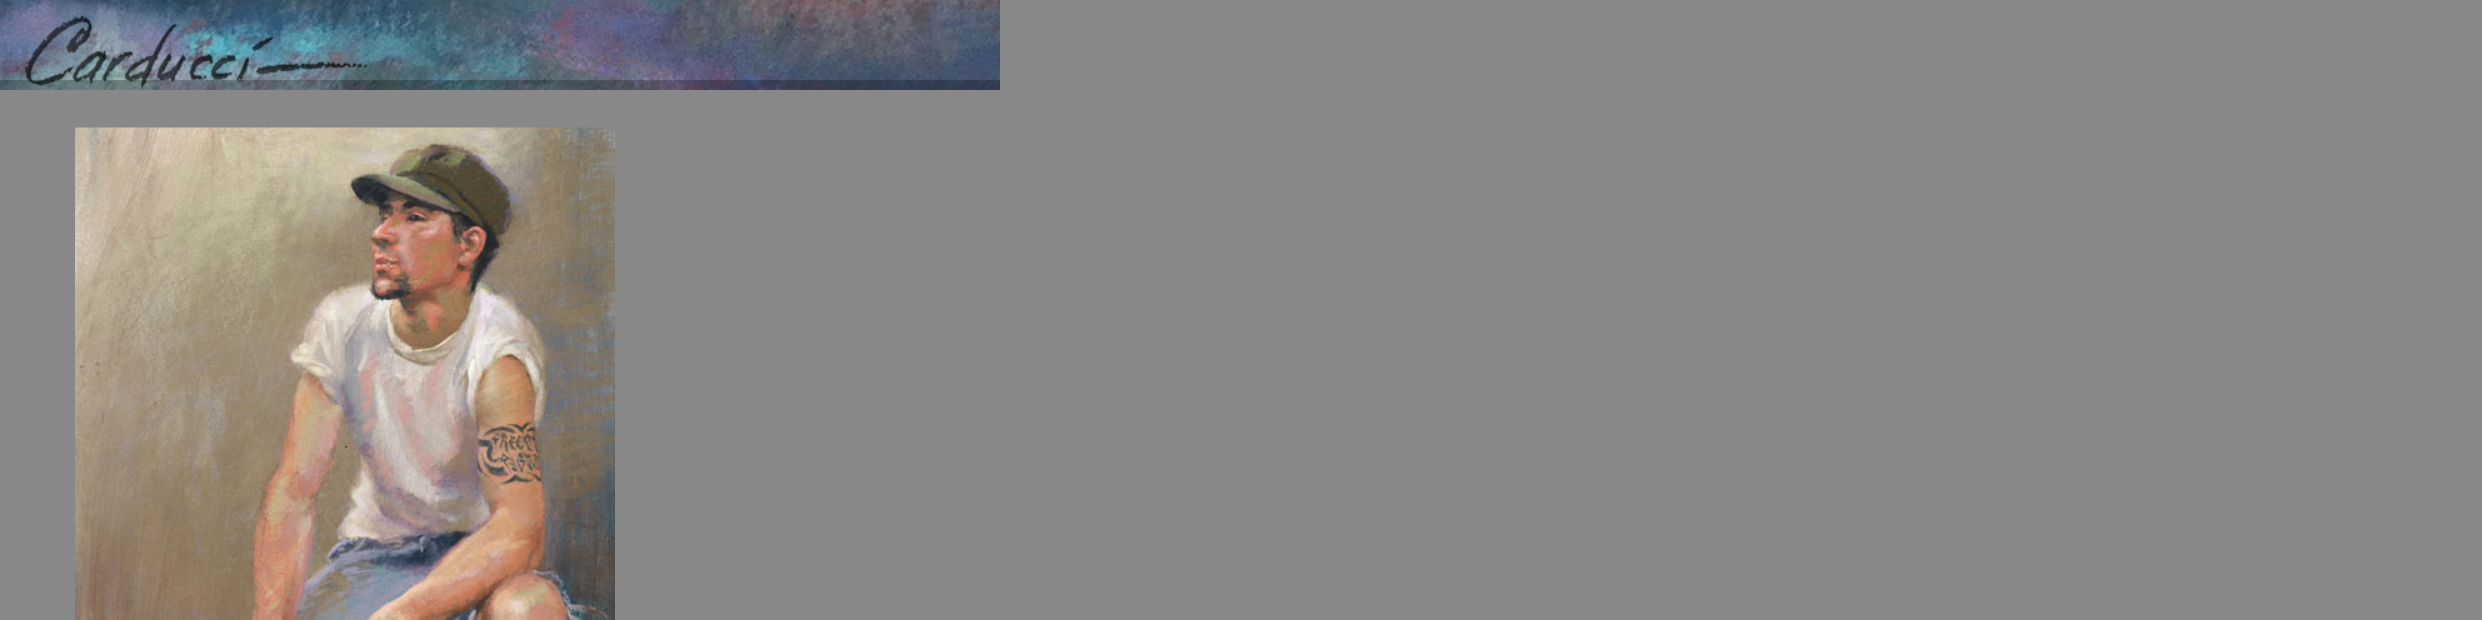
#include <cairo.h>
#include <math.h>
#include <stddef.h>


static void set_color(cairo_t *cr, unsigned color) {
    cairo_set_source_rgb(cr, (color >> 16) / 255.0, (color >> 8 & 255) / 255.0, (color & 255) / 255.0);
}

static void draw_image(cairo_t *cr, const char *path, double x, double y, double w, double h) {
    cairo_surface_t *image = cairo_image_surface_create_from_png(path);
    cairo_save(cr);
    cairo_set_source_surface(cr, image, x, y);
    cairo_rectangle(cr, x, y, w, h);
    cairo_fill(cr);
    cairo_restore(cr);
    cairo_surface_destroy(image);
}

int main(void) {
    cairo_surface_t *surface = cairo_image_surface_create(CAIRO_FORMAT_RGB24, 2482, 620);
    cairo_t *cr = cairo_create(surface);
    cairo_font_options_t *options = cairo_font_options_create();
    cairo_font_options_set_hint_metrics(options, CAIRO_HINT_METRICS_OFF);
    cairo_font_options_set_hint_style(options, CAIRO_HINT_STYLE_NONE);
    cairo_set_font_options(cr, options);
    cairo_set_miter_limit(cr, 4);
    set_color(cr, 0x888888);
    cairo_paint(cr);
    draw_image(cr, "assets/img1.png", 0, 0, 1000, 90);
    draw_image(cr, "assets/img2.png", 75, 127, 540, 493);
    cairo_surface_write_to_png(surface, "output.png");
    cairo_font_options_destroy(options);
    cairo_destroy(cr);
    cairo_surface_destroy(surface);
    return 0;
}
